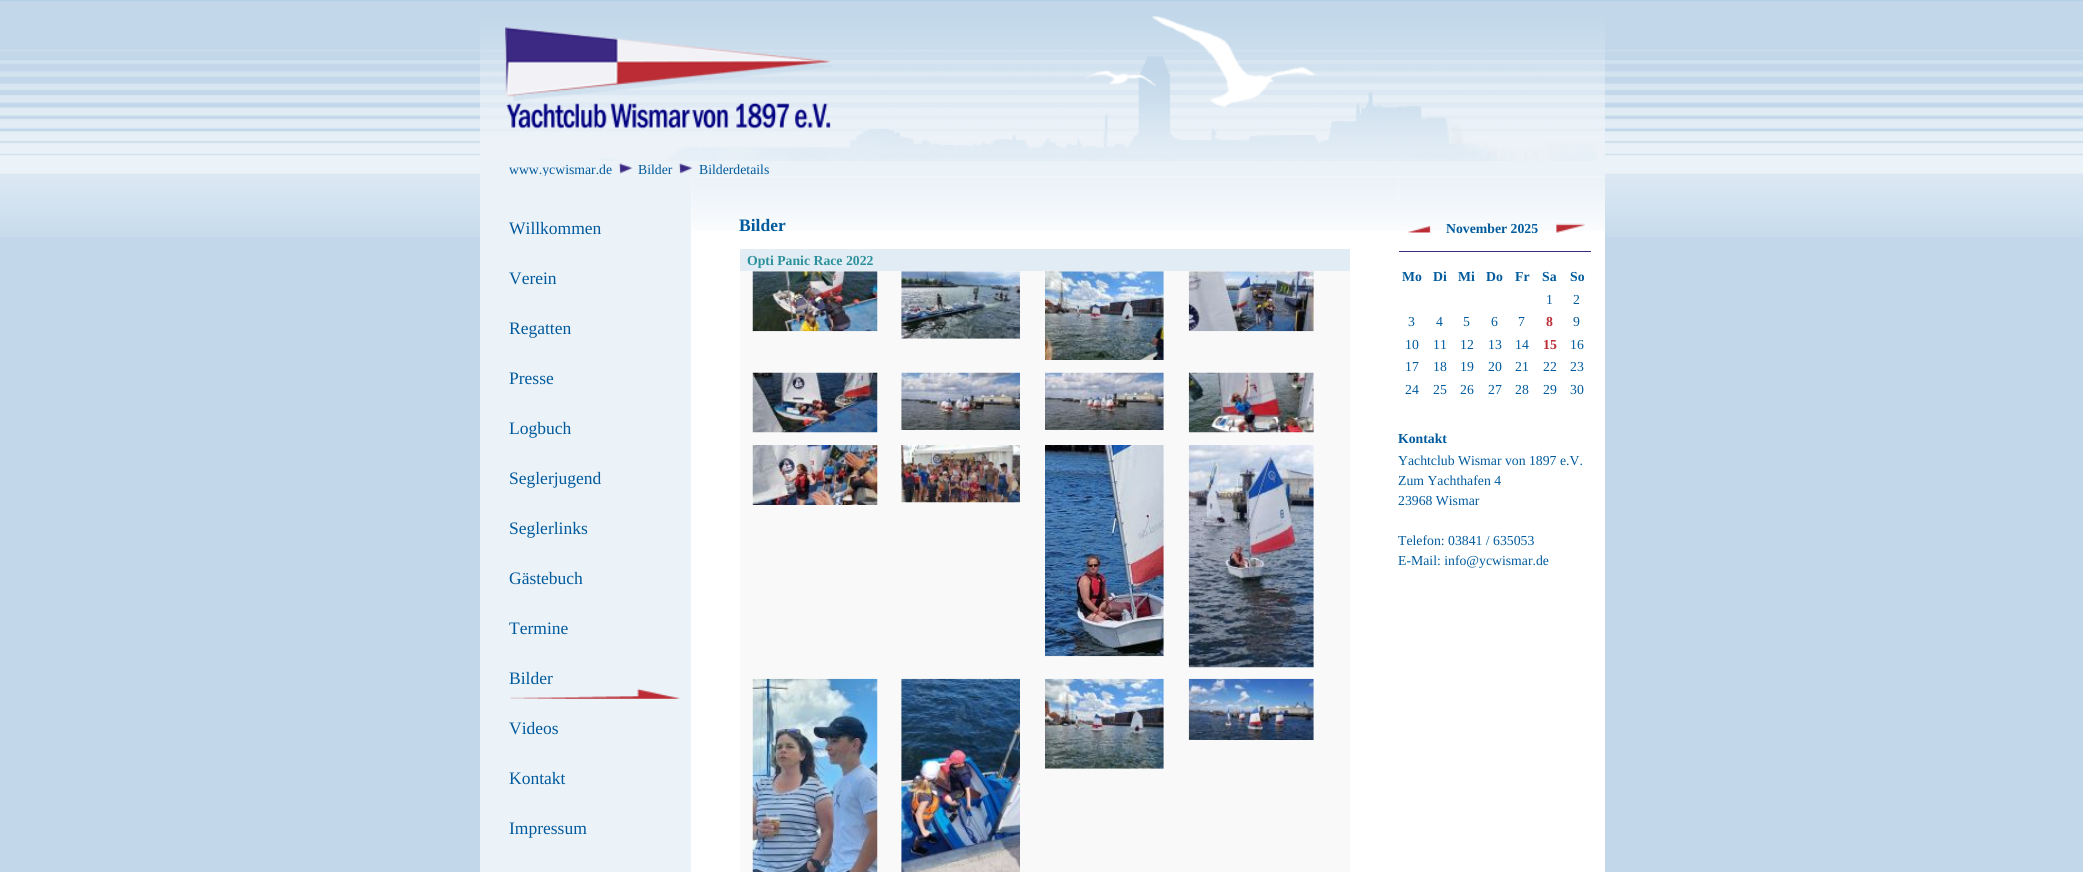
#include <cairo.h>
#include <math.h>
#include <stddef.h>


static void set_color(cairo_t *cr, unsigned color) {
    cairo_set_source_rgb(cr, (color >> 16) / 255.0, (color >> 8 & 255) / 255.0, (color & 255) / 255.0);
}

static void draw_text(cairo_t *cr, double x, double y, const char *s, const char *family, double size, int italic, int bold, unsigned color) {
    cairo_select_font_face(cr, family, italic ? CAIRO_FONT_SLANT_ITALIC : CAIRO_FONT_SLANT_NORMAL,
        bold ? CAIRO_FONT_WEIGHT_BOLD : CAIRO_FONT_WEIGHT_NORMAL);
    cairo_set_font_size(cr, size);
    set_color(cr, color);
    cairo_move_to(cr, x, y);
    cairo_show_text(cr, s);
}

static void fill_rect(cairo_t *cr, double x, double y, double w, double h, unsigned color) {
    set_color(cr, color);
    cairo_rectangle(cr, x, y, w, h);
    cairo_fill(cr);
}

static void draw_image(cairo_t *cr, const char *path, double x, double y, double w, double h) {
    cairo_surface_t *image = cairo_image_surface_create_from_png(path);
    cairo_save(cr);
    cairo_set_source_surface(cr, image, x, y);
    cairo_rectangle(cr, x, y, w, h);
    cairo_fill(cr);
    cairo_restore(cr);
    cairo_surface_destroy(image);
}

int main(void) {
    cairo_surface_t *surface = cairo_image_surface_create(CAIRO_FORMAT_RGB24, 2083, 872);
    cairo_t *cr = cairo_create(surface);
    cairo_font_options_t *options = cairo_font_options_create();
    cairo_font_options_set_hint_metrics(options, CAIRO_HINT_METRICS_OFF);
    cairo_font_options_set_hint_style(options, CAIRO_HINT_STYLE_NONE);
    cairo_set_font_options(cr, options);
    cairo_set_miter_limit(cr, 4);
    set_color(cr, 0xC2D8EA);
    cairo_paint(cr);
    draw_image(cr, "assets/img1.png", 0, 0, 2083, 237);
    draw_image(cr, "assets/img2.png", 480, 16, 1125, 145);
    draw_image(cr, "assets/img3.png", 505, 27, 327, 102);
    fill_rect(cr, 480, 173, 1125, 3, 0xEBF2F8);
    draw_text(cr, 509, 174, "www.ycwismar.de", "Liberation Serif", 13.75, 0, 0, 0x005A9C);
    draw_image(cr, "assets/img4.png", 618, 163, 15, 11);
    draw_text(cr, 638, 174, "Bilder", "Liberation Serif", 13.75, 0, 0, 0x005A9C);
    draw_image(cr, "assets/img5.png", 678, 163, 15, 11);
    draw_text(cr, 699, 174, "Bilderdetails", "Liberation Serif", 13.75, 0, 0, 0x005A9C);
    fill_rect(cr, 691, 176, 914, 696, 0xFFFFFF);
    fill_rect(cr, 480, 176, 211, 696, 0xEBF2F8);
    draw_text(cr, 509, 234, "Willkommen", "Liberation Serif", 17.5, 0, 0, 0x005A9C);
    draw_text(cr, 509, 284, "Verein", "Liberation Serif", 17.5, 0, 0, 0x005A9C);
    draw_text(cr, 509, 334, "Regatten", "Liberation Serif", 17.5, 0, 0, 0x005A9C);
    draw_text(cr, 509, 384, "Presse", "Liberation Serif", 17.5, 0, 0, 0x005A9C);
    draw_text(cr, 509, 434, "Logbuch", "Liberation Serif", 17.5, 0, 0, 0x005A9C);
    draw_text(cr, 509, 484, "Seglerjugend", "Liberation Serif", 17.5, 0, 0, 0x005A9C);
    draw_text(cr, 509, 534, "Seglerlinks", "Liberation Serif", 17.5, 0, 0, 0x005A9C);
    draw_text(cr, 509, 584, "Gästebuch", "Liberation Serif", 17.5, 0, 0, 0x005A9C);
    draw_text(cr, 509, 634, "Termine", "Liberation Serif", 17.5, 0, 0, 0x005A9C);
    draw_image(cr, "assets/img6.png", 510, 688, 170, 11);
    draw_text(cr, 509, 684, "Bilder", "Liberation Serif", 17.5, 0, 0, 0x005A9C);
    draw_text(cr, 509, 734, "Videos", "Liberation Serif", 17.5, 0, 0, 0x005A9C);
    draw_text(cr, 509, 784, "Kontakt", "Liberation Serif", 17.5, 0, 0, 0x005A9C);
    draw_text(cr, 509, 834, "Impressum", "Liberation Serif", 17.5, 0, 0, 0x005A9C);
    draw_image(cr, "assets/img7.png", 691, 176, 708, 55);
    draw_text(cr, 739, 231, "Bilder", "Liberation Serif", 17.5, 0, 1, 0x005A9C);
    fill_rect(cr, 740, 271, 610, 601, 0xF9F9F9);
    fill_rect(cr, 740, 249, 610, 22, 0xE1ECF4);
    draw_text(cr, 747, 265, "Opti Panic Race 2022", "Liberation Serif", 13.75, 0, 1, 0x2C919A);
    draw_image(cr, "assets/img8.png", 752, 271, 126, 61);
    draw_image(cr, "assets/img9.png", 901, 271, 119, 68);
    draw_image(cr, "assets/img10.png", 1045, 271, 119, 89);
    draw_image(cr, "assets/img11.png", 1188, 271, 126, 61);
    draw_image(cr, "assets/img12.png", 752, 372, 126, 61);
    draw_image(cr, "assets/img13.png", 901, 372, 119, 58);
    draw_image(cr, "assets/img14.png", 1045, 372, 119, 58);
    draw_image(cr, "assets/img15.png", 1188, 372, 126, 61);
    draw_image(cr, "assets/img16.png", 752, 445, 126, 60);
    draw_image(cr, "assets/img17.png", 901, 445, 119, 58);
    draw_image(cr, "assets/img18.png", 1045, 445, 119, 212);
    draw_image(cr, "assets/img19.png", 1188, 445, 126, 223);
    draw_image(cr, "assets/img20.png", 752, 678, 126, 194);
    draw_image(cr, "assets/img21.png", 901, 678, 119, 194);
    draw_image(cr, "assets/img22.png", 1045, 678, 119, 91);
    draw_image(cr, "assets/img23.png", 1188, 678, 126, 62);
    draw_image(cr, "assets/img24.png", 1399, 176, 206, 55);
    fill_rect(cr, 1399, 251, 192, 1, 0x3B2983);
    draw_image(cr, "assets/img25.png", 1407, 226, 24, 7);
    draw_text(cr, 1446, 233, "November 2025", "Liberation Serif", 13.75, 0, 1, 0x005A9C);
    draw_image(cr, "assets/img26.png", 1556, 223, 29, 10);
    draw_text(cr, 1402, 281, "Mo", "Liberation Serif", 13.75, 0, 1, 0x005A9C);
    draw_text(cr, 1433, 281, "Di", "Liberation Serif", 13.75, 0, 1, 0x005A9C);
    draw_text(cr, 1458, 281, "Mi", "Liberation Serif", 13.75, 0, 1, 0x005A9C);
    draw_text(cr, 1486, 281, "Do", "Liberation Serif", 13.75, 0, 1, 0x005A9C);
    draw_text(cr, 1515, 281, "Fr", "Liberation Serif", 13.75, 0, 1, 0x005A9C);
    draw_text(cr, 1542, 281, "Sa", "Liberation Serif", 13.75, 0, 1, 0x005A9C);
    draw_text(cr, 1570, 281, "So", "Liberation Serif", 13.75, 0, 1, 0x005A9C);
    draw_text(cr, 1546, 304, "1", "Liberation Serif", 13.75, 0, 0, 0x005A9C);
    draw_text(cr, 1573, 304, "2", "Liberation Serif", 13.75, 0, 0, 0x005A9C);
    draw_text(cr, 1408, 326, "3", "Liberation Serif", 13.75, 0, 0, 0x005A9C);
    draw_text(cr, 1436, 326, "4", "Liberation Serif", 13.75, 0, 0, 0x005A9C);
    draw_text(cr, 1463, 326, "5", "Liberation Serif", 13.75, 0, 0, 0x005A9C);
    draw_text(cr, 1491, 326, "6", "Liberation Serif", 13.75, 0, 0, 0x005A9C);
    draw_text(cr, 1518, 326, "7", "Liberation Serif", 13.75, 0, 0, 0x005A9C);
    draw_text(cr, 1546, 326, "8", "Liberation Serif", 13.75, 0, 1, 0xBB2C35);
    draw_text(cr, 1573, 326, "9", "Liberation Serif", 13.75, 0, 0, 0x005A9C);
    draw_text(cr, 1405, 349, "10", "Liberation Serif", 13.75, 0, 0, 0x005A9C);
    draw_text(cr, 1433, 349, "11", "Liberation Serif", 13.75, 0, 0, 0x005A9C);
    draw_text(cr, 1460, 349, "12", "Liberation Serif", 13.75, 0, 0, 0x005A9C);
    draw_text(cr, 1488, 349, "13", "Liberation Serif", 13.75, 0, 0, 0x005A9C);
    draw_text(cr, 1515, 349, "14", "Liberation Serif", 13.75, 0, 0, 0x005A9C);
    draw_text(cr, 1543, 349, "15", "Liberation Serif", 13.75, 0, 1, 0xBB2C35);
    draw_text(cr, 1570, 349, "16", "Liberation Serif", 13.75, 0, 0, 0x005A9C);
    draw_text(cr, 1405, 371, "17", "Liberation Serif", 13.75, 0, 0, 0x005A9C);
    draw_text(cr, 1433, 371, "18", "Liberation Serif", 13.75, 0, 0, 0x005A9C);
    draw_text(cr, 1460, 371, "19", "Liberation Serif", 13.75, 0, 0, 0x005A9C);
    draw_text(cr, 1488, 371, "20", "Liberation Serif", 13.75, 0, 0, 0x005A9C);
    draw_text(cr, 1515, 371, "21", "Liberation Serif", 13.75, 0, 0, 0x005A9C);
    draw_text(cr, 1543, 371, "22", "Liberation Serif", 13.75, 0, 0, 0x005A9C);
    draw_text(cr, 1570, 371, "23", "Liberation Serif", 13.75, 0, 0, 0x005A9C);
    draw_text(cr, 1405, 394, "24", "Liberation Serif", 13.75, 0, 0, 0x005A9C);
    draw_text(cr, 1433, 394, "25", "Liberation Serif", 13.75, 0, 0, 0x005A9C);
    draw_text(cr, 1460, 394, "26", "Liberation Serif", 13.75, 0, 0, 0x005A9C);
    draw_text(cr, 1488, 394, "27", "Liberation Serif", 13.75, 0, 0, 0x005A9C);
    draw_text(cr, 1515, 394, "28", "Liberation Serif", 13.75, 0, 0, 0x005A9C);
    draw_text(cr, 1543, 394, "29", "Liberation Serif", 13.75, 0, 0, 0x005A9C);
    draw_text(cr, 1570, 394, "30", "Liberation Serif", 13.75, 0, 0, 0x005A9C);
    draw_text(cr, 1398, 443, "Kontakt", "Liberation Serif", 13.75, 0, 1, 0x005A9C);
    draw_text(cr, 1398, 465, "Yachtclub Wismar von 1897 e.V.", "Liberation Serif", 13.75, 0, 0, 0x005A9C);
    draw_text(cr, 1398, 485, "Zum Yachthafen 4", "Liberation Serif", 13.75, 0, 0, 0x005A9C);
    draw_text(cr, 1398, 505, "23968 Wismar", "Liberation Serif", 13.75, 0, 0, 0x005A9C);
    draw_text(cr, 1398, 545, "Telefon: 03841 / 635053", "Liberation Serif", 13.75, 0, 0, 0x005A9C);
    draw_text(cr, 1398, 565, "E-Mail: info@ycwismar.de", "Liberation Serif", 13.75, 0, 0, 0x005A9C);
    cairo_surface_write_to_png(surface, "output.png");
    cairo_font_options_destroy(options);
    cairo_destroy(cr);
    cairo_surface_destroy(surface);
    return 0;
}
